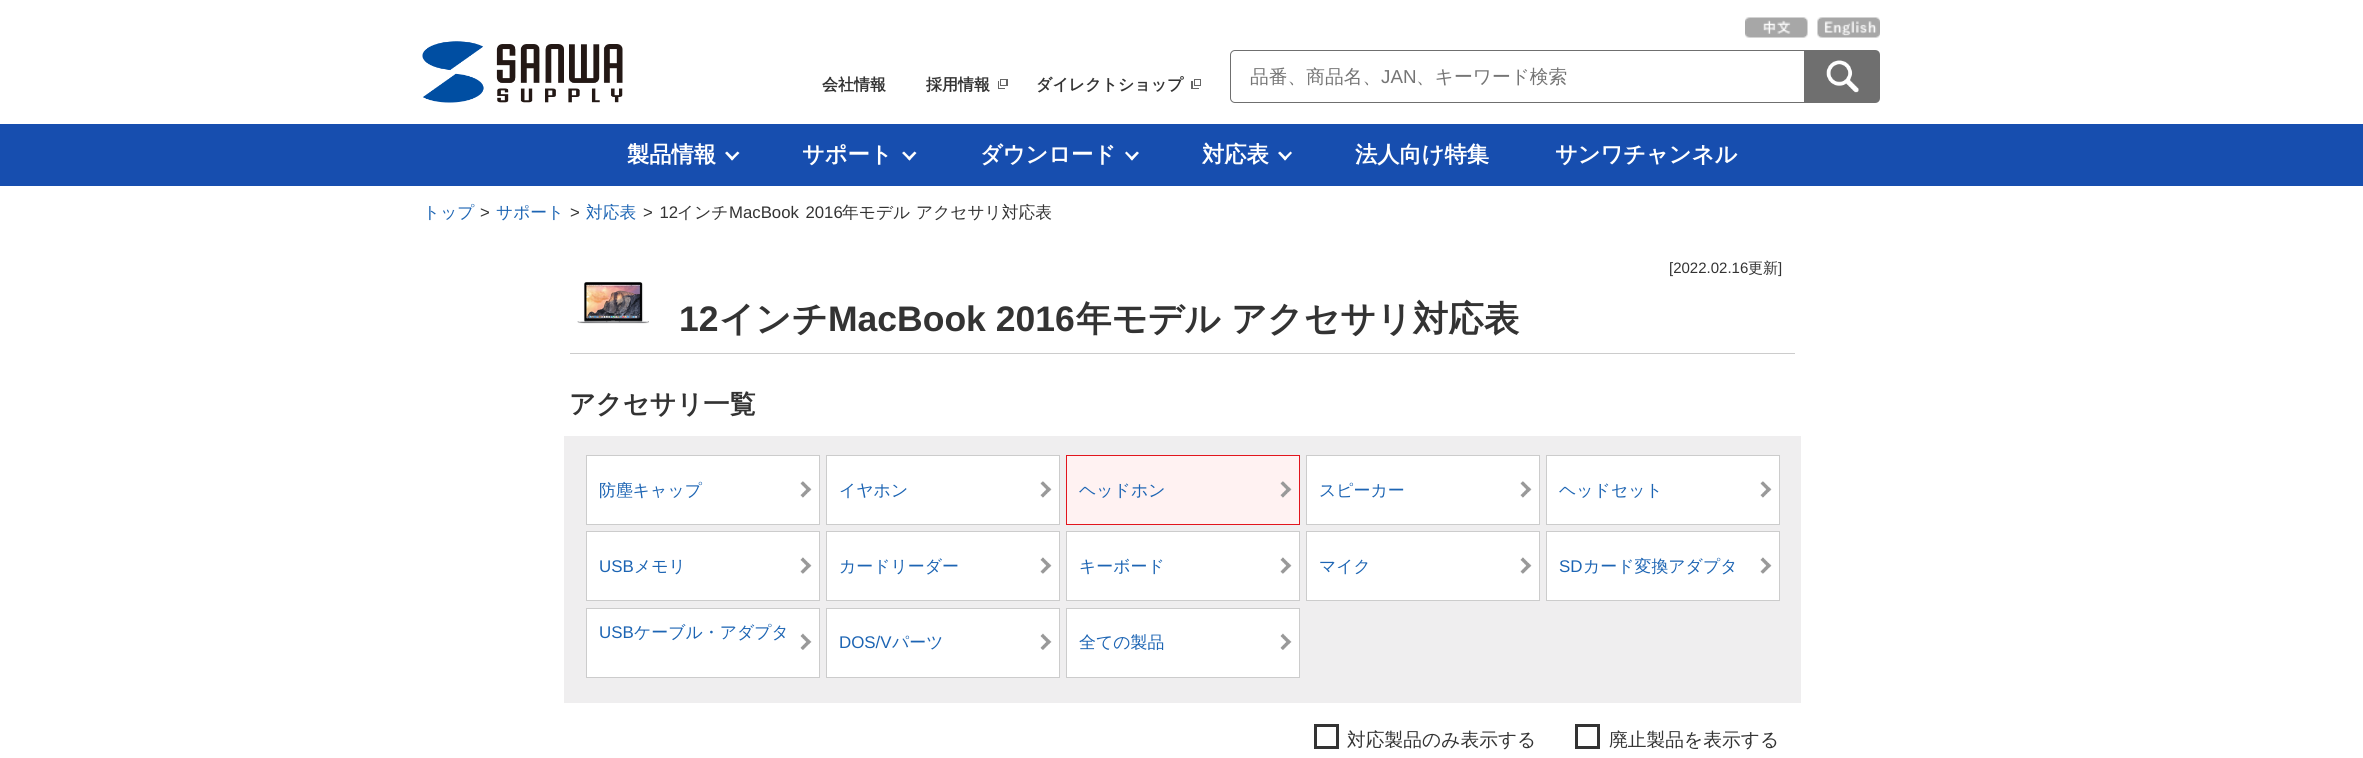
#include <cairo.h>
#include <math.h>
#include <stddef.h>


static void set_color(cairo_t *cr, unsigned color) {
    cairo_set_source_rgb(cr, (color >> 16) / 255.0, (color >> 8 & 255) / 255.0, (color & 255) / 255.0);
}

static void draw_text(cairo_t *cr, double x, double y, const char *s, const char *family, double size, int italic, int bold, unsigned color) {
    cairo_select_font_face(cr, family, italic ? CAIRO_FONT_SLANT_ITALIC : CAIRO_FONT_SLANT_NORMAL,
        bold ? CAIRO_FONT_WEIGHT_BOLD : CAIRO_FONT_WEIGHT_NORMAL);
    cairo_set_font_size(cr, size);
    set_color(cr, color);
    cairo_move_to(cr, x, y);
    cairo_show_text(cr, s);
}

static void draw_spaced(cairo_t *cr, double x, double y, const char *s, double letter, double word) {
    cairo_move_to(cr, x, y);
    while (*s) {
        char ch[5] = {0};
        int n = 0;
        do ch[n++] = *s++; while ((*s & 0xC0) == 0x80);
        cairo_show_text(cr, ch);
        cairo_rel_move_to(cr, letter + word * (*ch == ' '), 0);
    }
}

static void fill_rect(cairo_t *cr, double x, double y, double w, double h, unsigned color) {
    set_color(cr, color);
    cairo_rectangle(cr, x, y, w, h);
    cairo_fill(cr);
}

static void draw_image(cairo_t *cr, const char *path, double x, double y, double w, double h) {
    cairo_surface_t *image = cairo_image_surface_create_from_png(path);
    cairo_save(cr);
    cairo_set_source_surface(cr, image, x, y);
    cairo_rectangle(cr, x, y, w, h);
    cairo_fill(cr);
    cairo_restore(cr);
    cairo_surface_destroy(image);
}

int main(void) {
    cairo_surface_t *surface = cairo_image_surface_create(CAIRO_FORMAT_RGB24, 2363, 758);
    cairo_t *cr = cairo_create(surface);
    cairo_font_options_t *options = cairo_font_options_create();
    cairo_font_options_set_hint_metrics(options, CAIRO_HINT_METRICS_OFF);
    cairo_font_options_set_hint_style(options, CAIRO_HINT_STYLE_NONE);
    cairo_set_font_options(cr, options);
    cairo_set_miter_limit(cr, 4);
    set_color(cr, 0xFFFFFF);
    cairo_paint(cr);
    draw_image(cr, "assets/img1.png", 422, 41, 201, 62);
    draw_text(cr, 822, 90, "会社情報", "WenQuanYi Zen Hei", 16, 0, 1, 0x333333);
    draw_text(cr, 926, 90, "採用情報", "WenQuanYi Zen Hei", 16, 0, 1, 0x333333);
    draw_image(cr, "assets/img2.png", 998, 79, 10, 10);
    draw_text(cr, 1036, 90, "ダイレクトショップ", "WenQuanYi Zen Hei", 16, 0, 1, 0x333333);
    draw_image(cr, "assets/img3.png", 1191, 79, 10, 10);
    draw_image(cr, "assets/img4.png", 1745, 17, 63, 21);
    draw_image(cr, "assets/img5.png", 1817, 17, 63, 21);
    cairo_new_path(cr);
    cairo_move_to(cr, 1235, 50.5);
    cairo_line_to(cr, 1804.5, 50.5);
    cairo_line_to(cr, 1804.5, 102.5);
    cairo_line_to(cr, 1235, 102.5);
    cairo_curve_to(cr, 1232.5, 102.5, 1230.5, 100.5, 1230.5, 98);
    cairo_line_to(cr, 1230.5, 55);
    cairo_curve_to(cr, 1230.5, 52.5, 1232.5, 50.5, 1235, 50.5);
    cairo_close_path(cr);
    set_color(cr, 0x6F6F6F);
    cairo_set_line_width(cr, 1);
    cairo_stroke(cr);
    draw_text(cr, 1250, 83, "品番、商品名、", "WenQuanYi Zen Hei Medium", 18.75, 0, 0, 0x757575);
    draw_text(cr, 1381, 83, "JAN", "Liberation Sans", 18.75, 0, 0, 0x757575);
    draw_text(cr, 1416, 83, "、キーワード検索", "WenQuanYi Zen Hei Medium", 18.75, 0, 0, 0x757575);
    set_color(cr, 0x6F6F6F);
    cairo_new_path(cr);
    cairo_move_to(cr, 1805, 50);
    cairo_line_to(cr, 1875, 50);
    cairo_curve_to(cr, 1878, 50, 1880, 52, 1880, 55);
    cairo_line_to(cr, 1880, 98);
    cairo_curve_to(cr, 1880, 101, 1878, 103, 1875, 103);
    cairo_line_to(cr, 1805, 103);
    cairo_close_path(cr);
    cairo_fill(cr);
    draw_image(cr, "assets/img6.png", 1826, 60, 33, 33);
    fill_rect(cr, 0, 124, 2363, 62, 0x174EAF);
    draw_text(cr, 627, 162, "製品情報", "WenQuanYi Zen Hei", 22.25, 0, 1, 0xFFFFFF);
    cairo_new_path(cr);
    cairo_move_to(cr, 730.5, 158.5);
    cairo_line_to(cr, 737.5, 151.5);
    cairo_line_to(cr, 739.5, 153);
    cairo_line_to(cr, 732, 160.5);
    cairo_close_path(cr);
    cairo_fill(cr);
    cairo_new_path(cr);
    cairo_move_to(cr, 725, 153);
    cairo_line_to(cr, 727, 151.5);
    cairo_line_to(cr, 734, 158.5);
    cairo_line_to(cr, 732, 160.5);
    cairo_close_path(cr);
    cairo_fill(cr);
    draw_text(cr, 802, 162, "サポート", "WenQuanYi Zen Hei", 22.25, 0, 1, 0xFFFFFF);
    cairo_new_path(cr);
    cairo_move_to(cr, 907.5, 158.5);
    cairo_line_to(cr, 914.5, 151.5);
    cairo_line_to(cr, 916.5, 153);
    cairo_line_to(cr, 909.5, 160.5);
    cairo_close_path(cr);
    cairo_fill(cr);
    cairo_new_path(cr);
    cairo_move_to(cr, 902, 153);
    cairo_line_to(cr, 904, 151.5);
    cairo_line_to(cr, 911, 158.5);
    cairo_line_to(cr, 909.5, 160.5);
    cairo_close_path(cr);
    cairo_fill(cr);
    draw_text(cr, 980, 162, "ダウンロード", "WenQuanYi Zen Hei", 22.25, 0, 1, 0xFFFFFF);
    cairo_new_path(cr);
    cairo_move_to(cr, 1130, 158.5);
    cairo_line_to(cr, 1137, 151.5);
    cairo_line_to(cr, 1139, 153);
    cairo_line_to(cr, 1132, 160.5);
    cairo_close_path(cr);
    cairo_fill(cr);
    cairo_new_path(cr);
    cairo_move_to(cr, 1125, 153);
    cairo_line_to(cr, 1126.5, 151.5);
    cairo_line_to(cr, 1133.5, 158.5);
    cairo_line_to(cr, 1132, 160.5);
    cairo_close_path(cr);
    cairo_fill(cr);
    draw_text(cr, 1202, 162, "対応表", "WenQuanYi Zen Hei", 22.25, 0, 1, 0xFFFFFF);
    cairo_new_path(cr);
    cairo_move_to(cr, 1283.5, 158.5);
    cairo_line_to(cr, 1290.5, 151.5);
    cairo_line_to(cr, 1292, 153);
    cairo_line_to(cr, 1285, 160.5);
    cairo_close_path(cr);
    cairo_fill(cr);
    cairo_new_path(cr);
    cairo_move_to(cr, 1278, 153);
    cairo_line_to(cr, 1280, 151.5);
    cairo_line_to(cr, 1287, 158.5);
    cairo_line_to(cr, 1285, 160.5);
    cairo_close_path(cr);
    cairo_fill(cr);
    draw_text(cr, 1355, 162, "法人向け特集", "WenQuanYi Zen Hei", 22.25, 0, 1, 0xFFFFFF);
    draw_text(cr, 1555, 162, "サンワチャンネル", "WenQuanYi Zen Hei", 22.25, 0, 1, 0xFFFFFF);
    draw_text(cr, 423, 218, "トップ", "WenQuanYi Zen Hei Medium", 16.75, 0, 0, 0x1C64B3);
    draw_text(cr, 480, 218, ">", "Liberation Sans", 16.75, 0, 0, 0x333333);
    draw_text(cr, 496, 218, "サポート", "WenQuanYi Zen Hei Medium", 16.75, 0, 0, 0x1C64B3);
    draw_text(cr, 570, 218, ">", "Liberation Sans", 16.75, 0, 0, 0x333333);
    draw_text(cr, 586, 218, "対応表", "WenQuanYi Zen Hei Medium", 16.75, 0, 0, 0x1C64B3);
    cairo_select_font_face(cr, "Liberation Sans", CAIRO_FONT_SLANT_NORMAL, CAIRO_FONT_WEIGHT_NORMAL);
    set_color(cr, 0x333333);
    draw_spaced(cr, 643, 218, "> 12", 0, 2);
    draw_text(cr, 677, 218, "インチ", "WenQuanYi Zen Hei Medium", 16.75, 0, 0, 0x333333);
    cairo_select_font_face(cr, "Liberation Sans", CAIRO_FONT_SLANT_NORMAL, CAIRO_FONT_WEIGHT_NORMAL);
    draw_spaced(cr, 729, 218, "MacBook 2016", 0, 2);
    draw_text(cr, 842, 218, "年モデル", "WenQuanYi Zen Hei Medium", 16.75, 0, 0, 0x333333);
    draw_text(cr, 916, 218, "アクセサリ対応表", "WenQuanYi Zen Hei Medium", 16.75, 0, 0, 0x333333);
    fill_rect(cr, 570, 353, 1225, 1, 0xCCCCCC);
    draw_text(cr, 1669, 273, "[2022.02.16", "Liberation Sans", 15, 0, 0, 0x333333);
    draw_text(cr, 1748, 273, "更新", "WenQuanYi Zen Hei Medium", 15, 0, 0, 0x333333);
    draw_text(cr, 1778, 273, "]", "Liberation Sans", 15, 0, 0, 0x333333);
    draw_image(cr, "assets/img7.png", 577, 282, 72, 42);
    draw_text(cr, 679, 331, "12", "Liberation Sans", 35.5, 0, 1, 0x333333);
    draw_text(cr, 719, 331, "インチ", "WenQuanYi Zen Hei", 35.5, 0, 1, 0x333333);
    draw_text(cr, 828, 331, "MacBook 2016", "Liberation Sans", 35.5, 0, 1, 0x333333);
    draw_text(cr, 1076, 331, "年モデル", "WenQuanYi Zen Hei", 35.5, 0, 1, 0x333333);
    draw_text(cr, 1231, 331, "アクセサリ対応表", "WenQuanYi Zen Hei", 35.5, 0, 1, 0x333333);
    draw_text(cr, 569, 413, "アクセサリ一覧", "WenQuanYi Zen Hei", 26.25, 0, 1, 0x333333);
    fill_rect(cr, 564, 436, 1237, 267, 0xEFEEEF);
    fill_rect(cr, 587, 456, 232, 68, 0xFFFFFF);
    draw_image(cr, "assets/img8.png", 800, 481, 12, 17);
    cairo_rectangle(cr, 586.5, 455.5, 233, 69);
    set_color(cr, 0xCCCCCC);
    cairo_stroke(cr);
    draw_text(cr, 599, 496, "防塵キャップ", "WenQuanYi Zen Hei Medium", 16.9, 0, 0, 0x1C64B3);
    fill_rect(cr, 827, 456, 232, 68, 0xFFFFFF);
    draw_image(cr, "assets/img9.png", 1040, 481, 12, 17);
    cairo_rectangle(cr, 826.5, 455.5, 233, 69);
    set_color(cr, 0xCCCCCC);
    cairo_stroke(cr);
    draw_text(cr, 839, 496, "イヤホン", "WenQuanYi Zen Hei Medium", 16.9, 0, 0, 0x1C64B3);
    fill_rect(cr, 1067, 456, 232, 68, 0xFFF2F2);
    draw_image(cr, "assets/img10.png", 1280, 481, 12, 17);
    cairo_rectangle(cr, 1066.5, 455.5, 233, 69);
    set_color(cr, 0xE2151D);
    cairo_stroke(cr);
    draw_text(cr, 1079, 496, "ヘッドホン", "WenQuanYi Zen Hei Medium", 16.9, 0, 0, 0x1C64B3);
    fill_rect(cr, 1307, 456, 232, 68, 0xFFFFFF);
    draw_image(cr, "assets/img8.png", 1520, 481, 12, 17);
    cairo_rectangle(cr, 1306.5, 455.5, 233, 69);
    set_color(cr, 0xCCCCCC);
    cairo_stroke(cr);
    draw_text(cr, 1319, 496, "スピーカー", "WenQuanYi Zen Hei Medium", 16.9, 0, 0, 0x1C64B3);
    fill_rect(cr, 1547, 456, 232, 68, 0xFFFFFF);
    draw_image(cr, "assets/img9.png", 1760, 481, 12, 17);
    cairo_rectangle(cr, 1546.5, 455.5, 233, 69);
    set_color(cr, 0xCCCCCC);
    cairo_stroke(cr);
    draw_text(cr, 1559, 496, "ヘッドセット", "WenQuanYi Zen Hei Medium", 16.9, 0, 0, 0x1C64B3);
    fill_rect(cr, 587, 532, 232, 68, 0xFFFFFF);
    draw_image(cr, "assets/img11.png", 800, 557, 12, 17);
    cairo_rectangle(cr, 586.5, 531.5, 233, 69);
    set_color(cr, 0xCCCCCC);
    cairo_stroke(cr);
    draw_text(cr, 599, 572, "USB", "Liberation Sans", 16.9, 0, 0, 0x1C64B3);
    draw_text(cr, 634, 572, "メモリ", "WenQuanYi Zen Hei Medium", 16.9, 0, 0, 0x1C64B3);
    fill_rect(cr, 827, 532, 232, 68, 0xFFFFFF);
    draw_image(cr, "assets/img12.png", 1040, 557, 12, 17);
    cairo_rectangle(cr, 826.5, 531.5, 233, 69);
    set_color(cr, 0xCCCCCC);
    cairo_stroke(cr);
    draw_text(cr, 839, 572, "カードリーダー", "WenQuanYi Zen Hei Medium", 16.9, 0, 0, 0x1C64B3);
    fill_rect(cr, 1067, 532, 232, 68, 0xFFFFFF);
    draw_image(cr, "assets/img11.png", 1280, 557, 12, 17);
    cairo_rectangle(cr, 1066.5, 531.5, 233, 69);
    set_color(cr, 0xCCCCCC);
    cairo_stroke(cr);
    draw_text(cr, 1079, 572, "キーボード", "WenQuanYi Zen Hei Medium", 16.9, 0, 0, 0x1C64B3);
    fill_rect(cr, 1307, 532, 232, 68, 0xFFFFFF);
    draw_image(cr, "assets/img11.png", 1520, 557, 12, 17);
    cairo_rectangle(cr, 1306.5, 531.5, 233, 69);
    set_color(cr, 0xCCCCCC);
    cairo_stroke(cr);
    draw_text(cr, 1319, 572, "マイク", "WenQuanYi Zen Hei Medium", 16.9, 0, 0, 0x1C64B3);
    fill_rect(cr, 1547, 532, 232, 68, 0xFFFFFF);
    draw_image(cr, "assets/img12.png", 1760, 557, 12, 17);
    cairo_rectangle(cr, 1546.5, 531.5, 233, 69);
    set_color(cr, 0xCCCCCC);
    cairo_stroke(cr);
    draw_text(cr, 1559, 572, "SD", "Liberation Sans", 16.9, 0, 0, 0x1C64B3);
    draw_text(cr, 1583, 572, "カード変換アダプタ", "WenQuanYi Zen Hei Medium", 16.9, 0, 0, 0x1C64B3);
    fill_rect(cr, 587, 609, 232, 68, 0xFFFFFF);
    draw_image(cr, "assets/img13.png", 800, 633, 12, 17);
    cairo_rectangle(cr, 586.5, 608.5, 233, 69);
    set_color(cr, 0xCCCCCC);
    cairo_stroke(cr);
    draw_text(cr, 599, 638, "USB", "Liberation Sans", 16.9, 0, 0, 0x1C64B3);
    draw_text(cr, 634, 638, "ケーブル・アダプタ", "WenQuanYi Zen Hei Medium", 16.9, 0, 0, 0x1C64B3);
    fill_rect(cr, 827, 609, 232, 68, 0xFFFFFF);
    draw_image(cr, "assets/img14.png", 1040, 633, 12, 17);
    cairo_rectangle(cr, 826.5, 608.5, 233, 69);
    set_color(cr, 0xCCCCCC);
    cairo_stroke(cr);
    draw_text(cr, 839, 648, "DOS/V", "Liberation Sans", 16.9, 0, 0, 0x1C64B3);
    draw_text(cr, 892, 648, "パーツ", "WenQuanYi Zen Hei Medium", 16.9, 0, 0, 0x1C64B3);
    fill_rect(cr, 1067, 609, 232, 68, 0xFFFFFF);
    draw_image(cr, "assets/img13.png", 1280, 633, 12, 17);
    cairo_rectangle(cr, 1066.5, 608.5, 233, 69);
    set_color(cr, 0xCCCCCC);
    cairo_stroke(cr);
    draw_text(cr, 1079, 648, "全ての製品", "WenQuanYi Zen Hei Medium", 16.9, 0, 0, 0x1C64B3);
    cairo_rectangle(cr, 1315.5, 725.5, 22, 22);
    set_color(cr, 0x333333);
    cairo_set_line_width(cr, 3);
    cairo_stroke(cr);
    draw_text(cr, 1347, 746, "対応製品のみ表示する", "WenQuanYi Zen Hei Medium", 18.75, 0, 0, 0x333333);
    cairo_rectangle(cr, 1576.5, 725.5, 22, 22);
    cairo_stroke(cr);
    draw_text(cr, 1609, 746, "廃止製品を表示する", "WenQuanYi Zen Hei Medium", 18.75, 0, 0, 0x333333);
    cairo_surface_write_to_png(surface, "output.png");
    cairo_font_options_destroy(options);
    cairo_destroy(cr);
    cairo_surface_destroy(surface);
    return 0;
}
